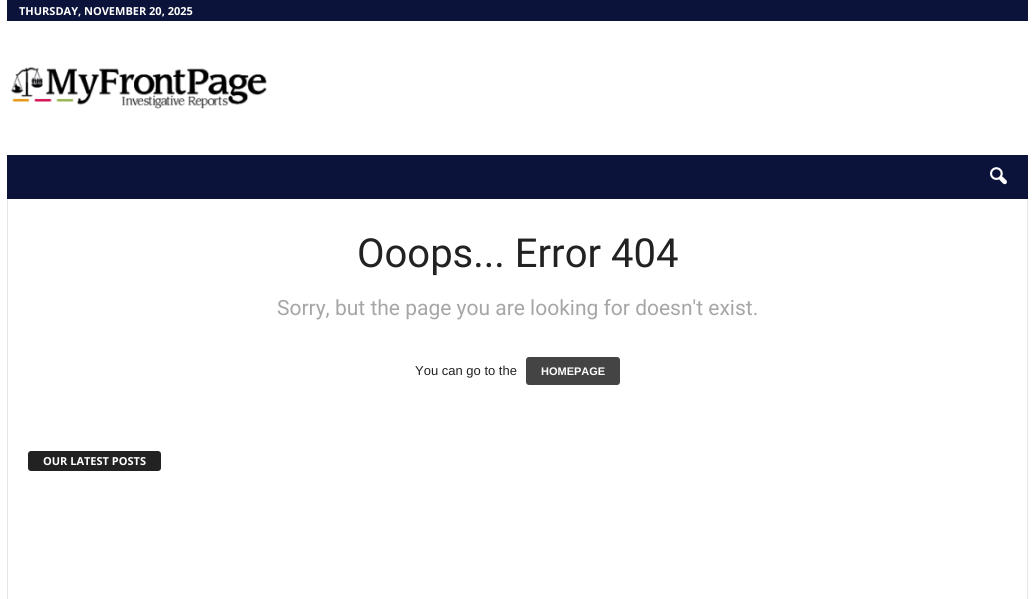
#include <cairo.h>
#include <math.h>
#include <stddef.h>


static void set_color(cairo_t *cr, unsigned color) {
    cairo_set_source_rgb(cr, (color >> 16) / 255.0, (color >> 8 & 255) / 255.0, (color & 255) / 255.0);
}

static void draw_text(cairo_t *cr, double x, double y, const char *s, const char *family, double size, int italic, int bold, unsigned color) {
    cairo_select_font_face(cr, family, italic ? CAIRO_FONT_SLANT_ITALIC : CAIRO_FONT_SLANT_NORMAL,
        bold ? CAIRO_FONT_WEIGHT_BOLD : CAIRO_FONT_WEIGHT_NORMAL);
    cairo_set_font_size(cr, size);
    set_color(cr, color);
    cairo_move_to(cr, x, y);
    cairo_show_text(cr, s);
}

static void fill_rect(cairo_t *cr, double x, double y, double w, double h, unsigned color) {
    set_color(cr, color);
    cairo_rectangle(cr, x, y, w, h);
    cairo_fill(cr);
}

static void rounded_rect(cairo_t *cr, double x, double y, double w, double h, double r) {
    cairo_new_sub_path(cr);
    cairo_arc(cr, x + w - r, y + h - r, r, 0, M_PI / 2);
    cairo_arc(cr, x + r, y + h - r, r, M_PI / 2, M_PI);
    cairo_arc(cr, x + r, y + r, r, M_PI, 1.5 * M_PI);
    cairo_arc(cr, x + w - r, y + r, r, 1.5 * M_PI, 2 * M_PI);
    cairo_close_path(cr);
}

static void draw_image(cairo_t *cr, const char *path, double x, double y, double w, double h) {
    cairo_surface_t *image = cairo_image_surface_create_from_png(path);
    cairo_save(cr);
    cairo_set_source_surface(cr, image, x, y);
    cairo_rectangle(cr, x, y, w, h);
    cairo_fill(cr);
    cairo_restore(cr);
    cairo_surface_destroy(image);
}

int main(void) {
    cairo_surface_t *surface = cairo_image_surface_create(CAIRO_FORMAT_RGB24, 1035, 599);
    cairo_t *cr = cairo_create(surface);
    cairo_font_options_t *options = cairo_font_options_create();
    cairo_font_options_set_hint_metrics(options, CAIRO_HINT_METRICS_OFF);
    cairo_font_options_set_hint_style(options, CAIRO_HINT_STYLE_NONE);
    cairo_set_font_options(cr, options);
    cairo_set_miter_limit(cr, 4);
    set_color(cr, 0xFFFFFF);
    cairo_paint(cr);
    fill_rect(cr, 7, 0, 1021, 21, 0x0C133A);
    draw_text(cr, 19, 15, "THURSDAY, NOVEMBER 20, 2025", "Open Sans", 11, 0, 1, 0xFFFFFF);
    draw_image(cr, "assets/img1.png", 11, 67, 256, 42);
    fill_rect(cr, 7, 155, 1021, 44, 0x0C133A);
    draw_image(cr, "assets/img2.png", 990, 167, 17, 18);
    fill_rect(cr, 7, 199, 1, 400, 0xE6E6E6);
    draw_text(cr, 357, 267, "Ooops... Error 404", "Roboto", 40, 0, 0, 0x222222);
    draw_text(cr, 277, 315, "Sorry, but the page you are looking for doesn't exist.", "Roboto", 21, 0, 0, 0xA6A6A6);
    draw_text(cr, 415, 375, "You can go to the", "Liberation Sans", 13, 0, 0, 0x222222);
    set_color(cr, 0x444444);
    rounded_rect(cr, 526, 357, 94, 28, 3);
    cairo_fill(cr);
    draw_text(cr, 541, 375, "HOMEPAGE", "Liberation Sans", 11, 0, 1, 0xFFFFFF);
    set_color(cr, 0x222222);
    rounded_rect(cr, 28, 451, 133, 20, 3);
    cairo_fill(cr);
    draw_text(cr, 43, 465, "OUR LATEST POSTS", "Open Sans", 11, 0, 1, 0xFFFFFF);
    fill_rect(cr, 1027, 199, 1, 400, 0xE6E6E6);
    cairo_surface_write_to_png(surface, "output.png");
    cairo_font_options_destroy(options);
    cairo_destroy(cr);
    cairo_surface_destroy(surface);
    return 0;
}
